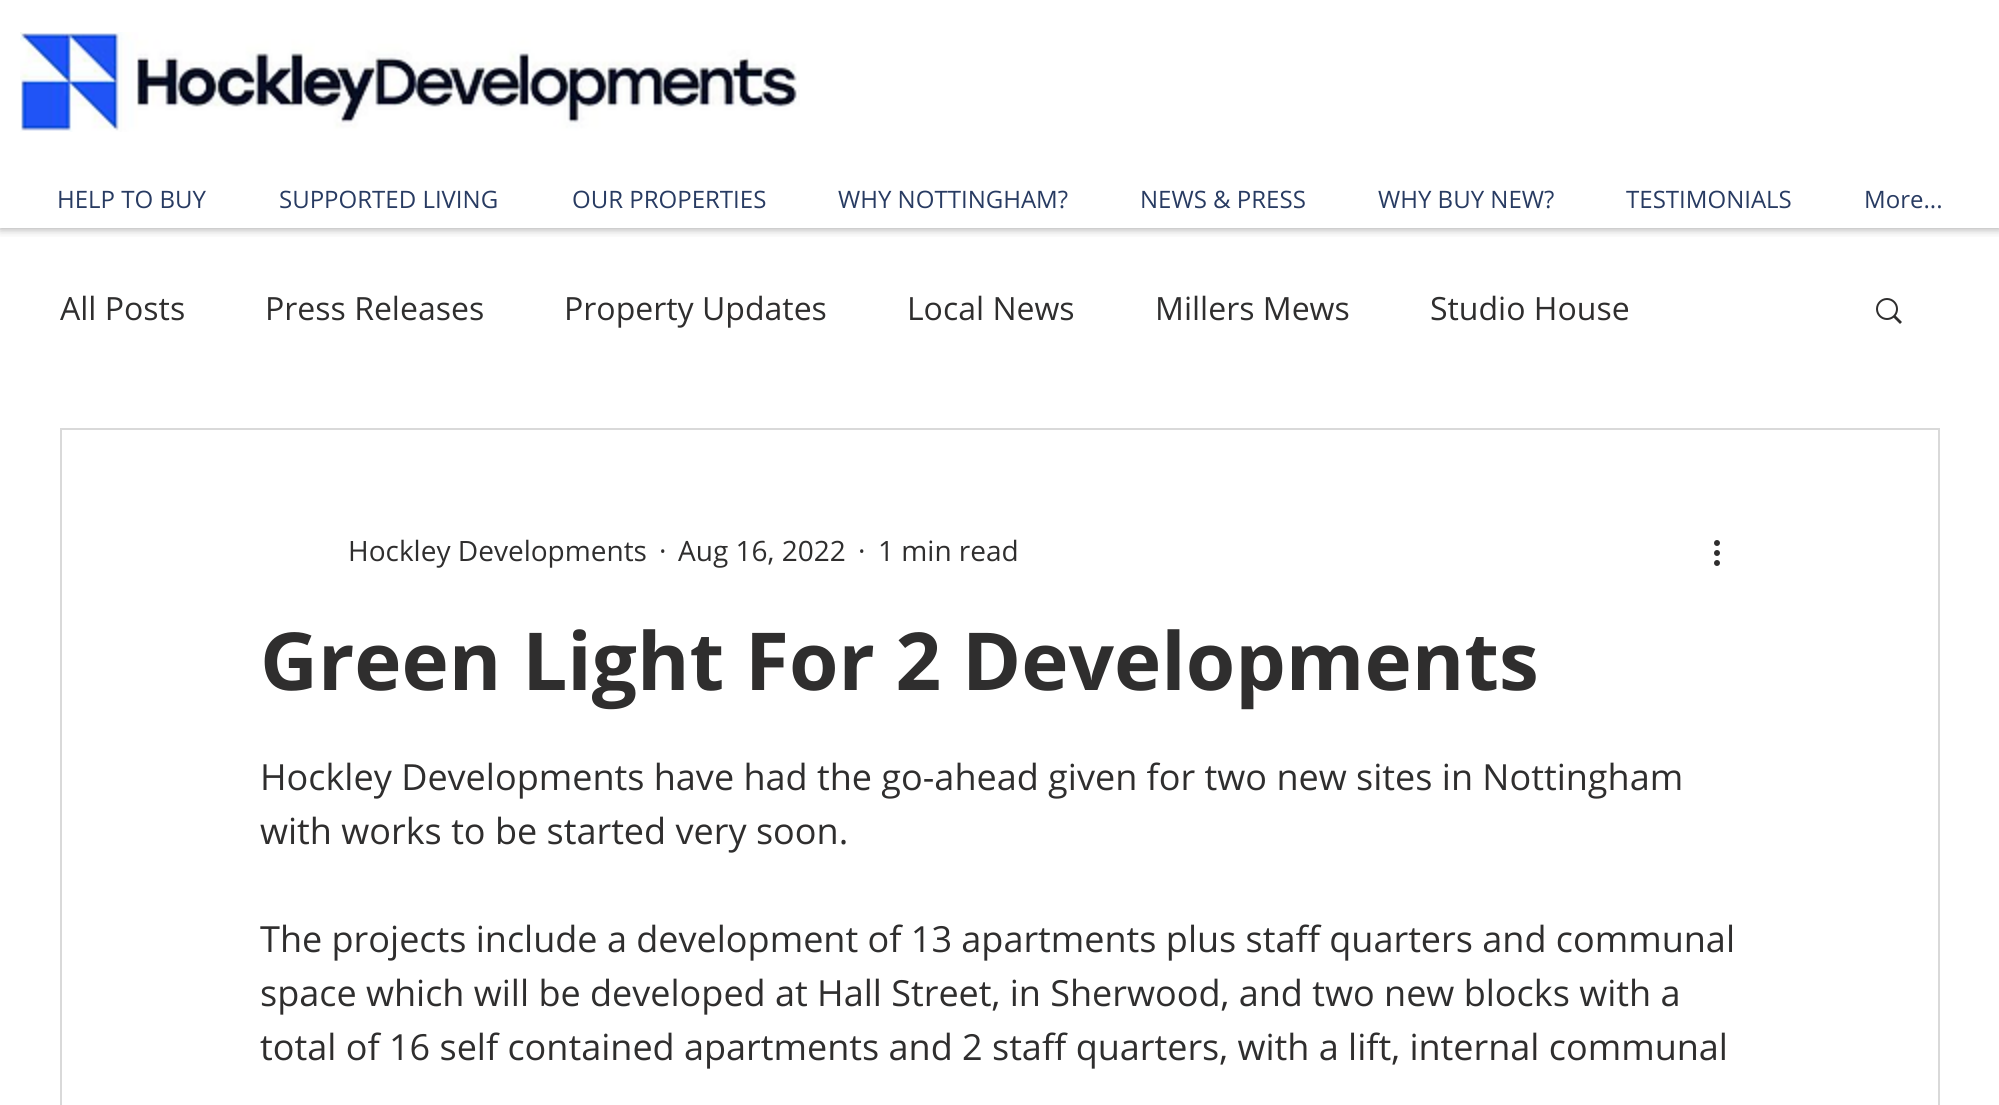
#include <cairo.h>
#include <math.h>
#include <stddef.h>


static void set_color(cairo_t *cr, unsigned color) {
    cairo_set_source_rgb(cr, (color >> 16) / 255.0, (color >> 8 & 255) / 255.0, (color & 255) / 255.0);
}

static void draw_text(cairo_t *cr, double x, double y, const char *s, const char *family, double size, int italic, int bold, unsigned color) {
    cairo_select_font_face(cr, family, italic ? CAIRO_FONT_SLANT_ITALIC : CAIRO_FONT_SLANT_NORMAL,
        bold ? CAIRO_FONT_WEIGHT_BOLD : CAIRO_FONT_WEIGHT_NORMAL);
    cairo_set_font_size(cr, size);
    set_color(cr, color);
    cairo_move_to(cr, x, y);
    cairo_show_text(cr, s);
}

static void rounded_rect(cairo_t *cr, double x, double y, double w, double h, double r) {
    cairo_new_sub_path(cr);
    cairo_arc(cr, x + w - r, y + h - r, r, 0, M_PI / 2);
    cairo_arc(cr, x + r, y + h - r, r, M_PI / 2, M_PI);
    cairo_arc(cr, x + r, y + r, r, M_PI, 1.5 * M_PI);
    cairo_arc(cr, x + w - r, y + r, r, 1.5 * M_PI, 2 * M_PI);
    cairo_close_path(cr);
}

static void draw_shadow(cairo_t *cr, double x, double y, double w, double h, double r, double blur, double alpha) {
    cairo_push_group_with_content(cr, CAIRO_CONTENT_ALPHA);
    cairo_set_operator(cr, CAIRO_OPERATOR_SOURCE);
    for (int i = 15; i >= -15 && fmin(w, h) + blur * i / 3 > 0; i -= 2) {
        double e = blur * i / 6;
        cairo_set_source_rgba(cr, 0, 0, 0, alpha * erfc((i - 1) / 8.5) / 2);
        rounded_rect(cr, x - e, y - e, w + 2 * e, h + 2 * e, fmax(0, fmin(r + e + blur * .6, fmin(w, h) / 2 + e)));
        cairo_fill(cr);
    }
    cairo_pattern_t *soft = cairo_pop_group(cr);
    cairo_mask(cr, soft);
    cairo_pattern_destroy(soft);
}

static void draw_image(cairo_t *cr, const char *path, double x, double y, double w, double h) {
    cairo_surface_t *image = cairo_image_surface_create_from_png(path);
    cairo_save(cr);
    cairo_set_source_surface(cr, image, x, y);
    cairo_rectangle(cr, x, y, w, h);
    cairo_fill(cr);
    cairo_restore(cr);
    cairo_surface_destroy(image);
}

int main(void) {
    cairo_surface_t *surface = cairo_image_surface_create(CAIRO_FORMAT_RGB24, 1999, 1105);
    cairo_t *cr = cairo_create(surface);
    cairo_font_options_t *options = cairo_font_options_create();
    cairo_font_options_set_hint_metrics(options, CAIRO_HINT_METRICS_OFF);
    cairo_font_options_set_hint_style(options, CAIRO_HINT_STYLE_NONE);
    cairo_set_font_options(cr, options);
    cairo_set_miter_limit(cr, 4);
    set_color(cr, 0xFFFFFF);
    cairo_paint(cr);
    cairo_save(cr);
    cairo_rectangle(cr, 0, 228, 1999, 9);
    cairo_clip(cr);
    set_color(cr, 0x2F2E2E);
    draw_shadow(cr, 0, 0, 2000, 228, 0, 5, 0.5);
    cairo_restore(cr);
    draw_image(cr, "assets/img1.png", 20, 32, 780, 100);
    draw_text(cr, 57, 208, "HELP TO BUY", "Open Sans", 24, 0, 0, 0x283B62);
    draw_text(cr, 279, 208, "SUPPORTED LIVING", "Open Sans", 24, 0, 0, 0x283B62);
    draw_text(cr, 572, 208, "OUR PROPERTIES", "Open Sans", 24, 0, 0, 0x283B62);
    draw_text(cr, 838, 208, "WHY NOTTINGHAM?", "Open Sans", 24, 0, 0, 0x283B62);
    draw_text(cr, 1140, 208, "NEWS & PRESS", "Open Sans", 24, 0, 0, 0x283B62);
    draw_text(cr, 1378, 208, "WHY BUY NEW?", "Open Sans", 24, 0, 0, 0x283B62);
    draw_text(cr, 1626, 208, "TESTIMONIALS", "Open Sans", 24, 0, 0, 0x283B62);
    draw_text(cr, 1864, 208, "More...", "Open Sans", 24, 0, 0, 0x283B62);
    draw_text(cr, 60, 320, "All Posts", "Open Sans", 32, 0, 0, 0x2F2E2E);
    draw_text(cr, 265, 320, "Press Releases", "Open Sans", 32, 0, 0, 0x2F2E2E);
    draw_text(cr, 564, 320, "Property Updates", "Open Sans", 32, 0, 0, 0x2F2E2E);
    draw_text(cr, 907, 320, "Local News", "Open Sans", 32, 0, 0, 0x2F2E2E);
    draw_text(cr, 1155, 320, "Millers Mews", "Open Sans", 32, 0, 0, 0x2F2E2E);
    draw_text(cr, 1430, 320, "Studio House", "Open Sans", 32, 0, 0, 0x2F2E2E);
    draw_image(cr, "assets/img2.png", 1876, 298, 26, 26);
    cairo_rectangle(cr, 61, 429, 1878, 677);
    set_color(cr, 0xD9D9D9);
    cairo_stroke(cr);
    draw_text(cr, 348, 561, "Hockley Developments", "Open Sans", 28, 0, 0, 0x2F2E2E);
    draw_text(cr, 659, 561, "·", "Open Sans", 28, 0, 0, 0x2F2E2E);
    draw_text(cr, 678, 561, "Aug 16, 2022", "Open Sans", 28, 0, 0, 0x2F2E2E);
    draw_text(cr, 858, 561, "·", "Open Sans", 28, 0, 0, 0x2F2E2E);
    draw_text(cr, 878, 561, "1 min read", "Open Sans", 28, 0, 0, 0x2F2E2E);
    draw_image(cr, "assets/img3.png", 1714, 540, 6, 26);
    draw_text(cr, 260, 690, "Green Light For 2 Developments", "Open Sans", 80, 0, 1, 0x2F2E2E);
    draw_text(cr, 260, 790, "Hockley Developments have had the go-ahead given for two new sites in Nottingham", "Open Sans", 36, 0, 0, 0x2F2E2E);
    draw_text(cr, 260, 844, "with works to be started very soon.", "Open Sans", 36, 0, 0, 0x2F2E2E);
    draw_text(cr, 260, 952, "The projects include a development of 13 apartments plus staff quarters and communal", "Open Sans", 36, 0, 0, 0x2F2E2E);
    draw_text(cr, 260, 1006, "space which will be developed at Hall Street, in Sherwood, and two new blocks with a", "Open Sans", 36, 0, 0, 0x2F2E2E);
    draw_text(cr, 260, 1060, "total of 16 self contained apartments and 2 staff quarters, with a lift, internal communal", "Open Sans", 36, 0, 0, 0x2F2E2E);
    cairo_surface_write_to_png(surface, "output.png");
    cairo_font_options_destroy(options);
    cairo_destroy(cr);
    cairo_surface_destroy(surface);
    return 0;
}
